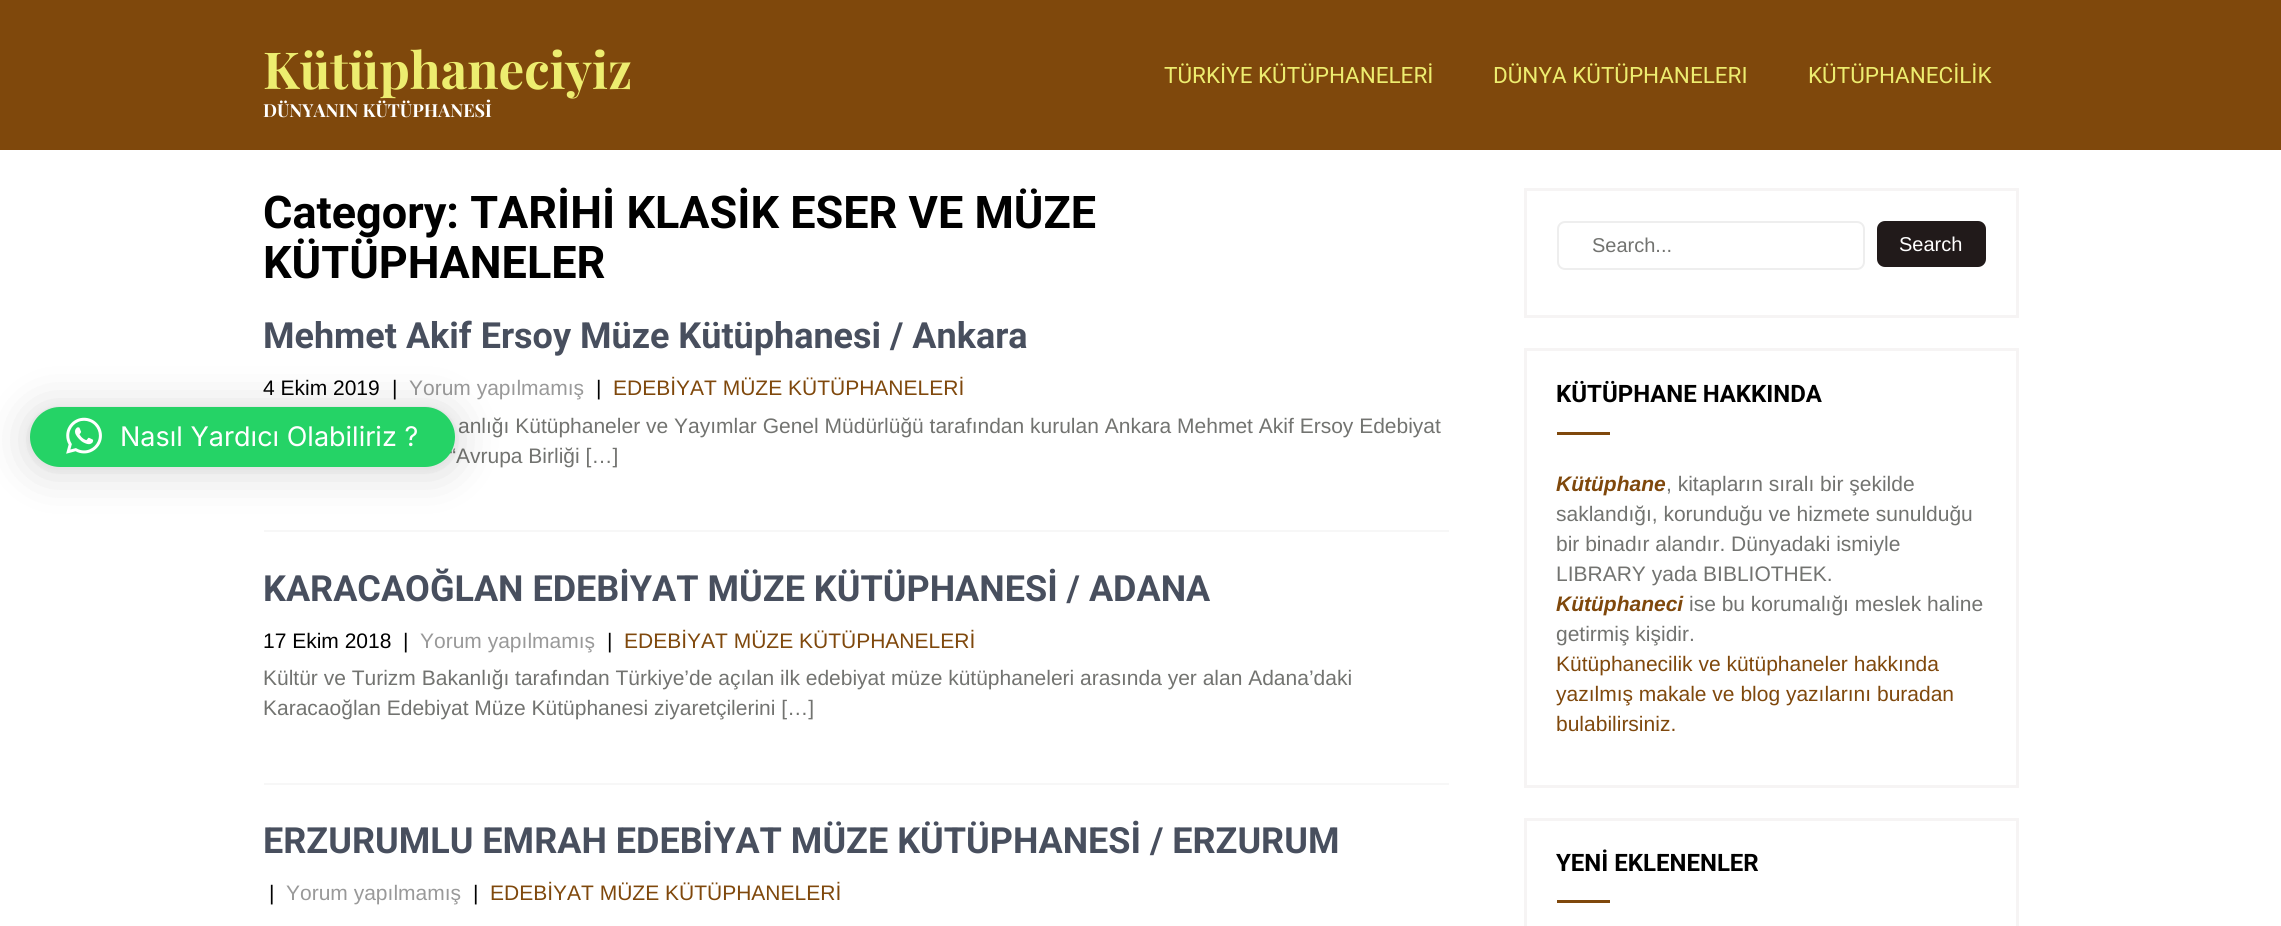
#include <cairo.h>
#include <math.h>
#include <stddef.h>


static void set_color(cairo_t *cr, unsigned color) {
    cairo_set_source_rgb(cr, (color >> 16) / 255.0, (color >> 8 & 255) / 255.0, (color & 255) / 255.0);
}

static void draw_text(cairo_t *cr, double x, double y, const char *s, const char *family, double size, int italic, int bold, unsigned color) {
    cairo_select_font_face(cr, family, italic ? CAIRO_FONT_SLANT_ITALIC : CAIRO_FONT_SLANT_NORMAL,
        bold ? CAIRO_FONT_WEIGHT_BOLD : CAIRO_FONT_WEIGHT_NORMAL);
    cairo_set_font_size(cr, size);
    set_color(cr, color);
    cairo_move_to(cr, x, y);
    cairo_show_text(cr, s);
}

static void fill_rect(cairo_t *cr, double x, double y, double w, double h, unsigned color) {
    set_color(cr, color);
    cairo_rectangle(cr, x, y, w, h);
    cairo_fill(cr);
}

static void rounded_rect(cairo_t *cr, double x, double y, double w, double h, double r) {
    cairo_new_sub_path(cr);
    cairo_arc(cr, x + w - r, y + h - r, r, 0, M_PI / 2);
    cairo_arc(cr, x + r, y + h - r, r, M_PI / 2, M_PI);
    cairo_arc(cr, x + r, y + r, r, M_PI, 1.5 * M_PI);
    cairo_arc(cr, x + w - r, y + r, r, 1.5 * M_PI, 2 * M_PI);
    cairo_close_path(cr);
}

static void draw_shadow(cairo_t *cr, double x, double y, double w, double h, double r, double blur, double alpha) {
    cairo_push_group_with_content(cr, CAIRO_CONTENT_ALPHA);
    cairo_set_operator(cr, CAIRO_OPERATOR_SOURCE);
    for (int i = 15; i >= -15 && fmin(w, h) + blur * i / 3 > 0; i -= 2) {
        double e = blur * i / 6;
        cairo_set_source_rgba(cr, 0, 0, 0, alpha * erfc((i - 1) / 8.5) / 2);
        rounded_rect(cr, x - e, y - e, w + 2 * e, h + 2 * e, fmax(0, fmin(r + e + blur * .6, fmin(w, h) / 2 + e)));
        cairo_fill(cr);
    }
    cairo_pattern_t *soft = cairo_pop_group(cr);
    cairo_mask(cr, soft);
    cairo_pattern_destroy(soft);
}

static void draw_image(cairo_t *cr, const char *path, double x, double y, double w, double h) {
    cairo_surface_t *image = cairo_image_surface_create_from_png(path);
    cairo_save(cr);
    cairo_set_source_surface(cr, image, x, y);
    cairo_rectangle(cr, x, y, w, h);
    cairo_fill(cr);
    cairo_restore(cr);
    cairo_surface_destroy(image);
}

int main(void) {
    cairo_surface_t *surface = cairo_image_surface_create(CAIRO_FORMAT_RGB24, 2281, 926);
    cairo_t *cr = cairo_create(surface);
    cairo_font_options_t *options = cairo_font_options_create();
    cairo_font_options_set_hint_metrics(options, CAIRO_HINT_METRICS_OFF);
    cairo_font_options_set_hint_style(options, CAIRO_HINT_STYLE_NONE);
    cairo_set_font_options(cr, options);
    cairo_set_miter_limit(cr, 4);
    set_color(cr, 0xFFFFFF);
    cairo_paint(cr);
    fill_rect(cr, 0, 0, 2281, 150, 0x7F480C);
    draw_text(cr, 263, 89, "Kütüphaneciyiz", "Playfair Display", 51, 0, 1, 0xEDED6F);
    draw_text(cr, 263, 117, "DÜNYANIN KÜTÜPHANESİ", "Playfair Display", 18, 0, 1, 0xFFFFFF);
    draw_text(cr, 1164, 83, "TÜRKİYE KÜTÜPHANELERİ", "Roboto", 22.5, 0, 0, 0xEDED6F);
    draw_text(cr, 1493, 83, "DÜNYA KÜTÜPHANELERI", "Roboto", 22.5, 0, 0, 0xEDED6F);
    draw_text(cr, 1808, 83, "KÜTÜPHANECİLİK", "Roboto", 22.5, 0, 0, 0xEDED6F);
    draw_text(cr, 263, 228, "Category: TARİHİ KLASİK ESER VE MÜZE", "Roboto", 45, 0, 1, 0x000000);
    draw_text(cr, 263, 278, "KÜTÜPHANELER", "Roboto", 45, 0, 1, 0x000000);
    fill_rect(cr, 264, 530, 1185, 2, 0xF7F7F7);
    draw_text(cr, 263, 348, "Mehmet Akif Ersoy Müze Kütüphanesi / Ankara", "Roboto", 36, 0, 1, 0x484F5E);
    draw_text(cr, 263, 395, "4 Ekim 2019", "Liberation Sans", 21, 0, 0, 0x000000);
    draw_text(cr, 392, 395, "|", "Liberation Sans", 21, 0, 0, 0x000000);
    draw_text(cr, 409, 395, "Yorum yapılmamış", "Liberation Sans", 21, 0, 0, 0x999999);
    draw_text(cr, 596, 395, "|", "Liberation Sans", 21, 0, 0, 0x000000);
    draw_text(cr, 613, 395, "EDEBİYAT MÜZE KÜTÜPHANELERİ", "Liberation Sans", 21, 0, 0, 0x7F480C);
    draw_text(cr, 458, 433, "anlığı Kütüphaneler ve Yayımlar Genel Müdürlüğü tarafından kurulan Ankara Mehmet Akif Ersoy Edebiyat", "Liberation Sans", 21, 0, 0, 0x727370);
    draw_text(cr, 449, 463, "“Avrupa Birliği […]", "Liberation Sans", 21, 0, 0, 0x727370);
    fill_rect(cr, 264, 783, 1185, 2, 0xF7F7F7);
    draw_text(cr, 263, 601, "KARACAOĞLAN EDEBİYAT MÜZE KÜTÜPHANESİ / ADANA", "Roboto", 36, 0, 1, 0x484F5E);
    draw_text(cr, 263, 648, "17 Ekim 2018", "Liberation Sans", 21, 0, 0, 0x000000);
    draw_text(cr, 403, 648, "|", "Liberation Sans", 21, 0, 0, 0x000000);
    draw_text(cr, 420, 648, "Yorum yapılmamış", "Liberation Sans", 21, 0, 0, 0x999999);
    draw_text(cr, 607, 648, "|", "Liberation Sans", 21, 0, 0, 0x000000);
    draw_text(cr, 624, 648, "EDEBİYAT MÜZE KÜTÜPHANELERİ", "Liberation Sans", 21, 0, 0, 0x7F480C);
    draw_text(cr, 263, 685, "Kültür ve Turizm Bakanlığı tarafından Türkiye’de açılan ilk edebiyat müze kütüphaneleri arasında yer alan Adana’daki", "Liberation Sans", 21, 0, 0, 0x727370);
    draw_text(cr, 263, 715, "Karacaoğlan Edebiyat Müze Kütüphanesi ziyaretçilerini […]", "Liberation Sans", 21, 0, 0, 0x727370);
    draw_text(cr, 263, 853, "ERZURUMLU EMRAH EDEBİYAT MÜZE KÜTÜPHANESİ / ERZURUM", "Roboto", 36, 0, 1, 0x484F5E);
    draw_text(cr, 269, 900, "|", "Liberation Sans", 21, 0, 0, 0x000000);
    draw_text(cr, 286, 900, "Yorum yapılmamış", "Liberation Sans", 21, 0, 0, 0x999999);
    draw_text(cr, 473, 900, "|", "Liberation Sans", 21, 0, 0, 0x000000);
    draw_text(cr, 490, 900, "EDEBİYAT MÜZE KÜTÜPHANELERİ", "Liberation Sans", 21, 0, 0, 0x7F480C);
    cairo_rectangle(cr, 1525.5, 189.5, 492, 127);
    set_color(cr, 0xF6F4F4);
    cairo_set_line_width(cr, 3);
    cairo_stroke(cr);
    rounded_rect(cr, 1558, 222, 306, 47, 7);
    set_color(cr, 0xEEEEEE);
    cairo_set_line_width(cr, 2);
    cairo_stroke(cr);
    draw_text(cr, 1592, 252, "Search...", "Liberation Sans", 20, 0, 0, 0x727370);
    set_color(cr, 0x211A1A);
    rounded_rect(cr, 1877, 221, 109, 46, 8);
    cairo_fill(cr);
    draw_text(cr, 1899, 251, "Search", "Liberation Sans", 20, 0, 0, 0xFFFFFF);
    cairo_rectangle(cr, 1525.5, 349.5, 492, 437);
    set_color(cr, 0xF6F4F4);
    cairo_set_line_width(cr, 3);
    cairo_stroke(cr);
    draw_text(cr, 1556, 402, "KÜTÜPHANE HAKKINDA", "Roboto", 24, 0, 1, 0x000000);
    fill_rect(cr, 1557, 432, 53, 3, 0x7F480C);
    draw_text(cr, 1556, 491, "Kütüphane", "Liberation Sans", 21, 1, 1, 0x7F480C);
    draw_text(cr, 1666, 491, ", kitapların sıralı bir şekilde", "Liberation Sans", 21, 0, 0, 0x727370);
    draw_text(cr, 1556, 521, "saklandığı, korunduğu ve hizmete sunulduğu", "Liberation Sans", 21, 0, 0, 0x727370);
    draw_text(cr, 1556, 551, "bir binadır alandır. Dünyadaki ismiyle", "Liberation Sans", 21, 0, 0, 0x727370);
    draw_text(cr, 1556, 581, "LIBRARY yada BIBLIOTHEK.", "Liberation Sans", 21, 0, 0, 0x727370);
    draw_text(cr, 1556, 611, "Kütüphaneci", "Liberation Sans", 21, 1, 1, 0x7F480C);
    draw_text(cr, 1689, 611, "ise bu korumalığı meslek haline", "Liberation Sans", 21, 0, 0, 0x727370);
    draw_text(cr, 1556, 641, "getirmiş kişidir.", "Liberation Sans", 21, 0, 0, 0x727370);
    draw_text(cr, 1556, 671, "Kütüphanecilik ve kütüphaneler hakkında", "Liberation Sans", 21, 0, 0, 0x7F480C);
    draw_text(cr, 1556, 701, "yazılmış makale ve blog yazılarını buradan", "Liberation Sans", 21, 0, 0, 0x7F480C);
    draw_text(cr, 1556, 731, "bulabilirsiniz.", "Liberation Sans", 21, 0, 0, 0x7F480C);
    cairo_rectangle(cr, 1525.5, 819.5, 492, 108);
    set_color(cr, 0xF6F4F4);
    cairo_stroke(cr);
    draw_text(cr, 1556, 871, "YENİ EKLENENLER", "Roboto", 24, 0, 1, 0x000000);
    fill_rect(cr, 1557, 900, 53, 3, 0x7F480C);
    set_color(cr, 0x000000);
    draw_shadow(cr, 30, 410, 425, 60, 30, 24, 0.16);
    draw_shadow(cr, 30, 408, 425, 60, 30, 4.5, 0.06);
    set_color(cr, 0x25D366);
    rounded_rect(cr, 30, 407, 425, 60, 30);
    cairo_fill(cr);
    draw_image(cr, "assets/img1.png", 66, 417, 36, 37);
    draw_text(cr, 120, 446, "Nasıl Yardıcı Olabiliriz ?", "Inter", 27, 0, 0, 0xFFFFFF);
    cairo_surface_write_to_png(surface, "output.png");
    cairo_font_options_destroy(options);
    cairo_destroy(cr);
    cairo_surface_destroy(surface);
    return 0;
}
